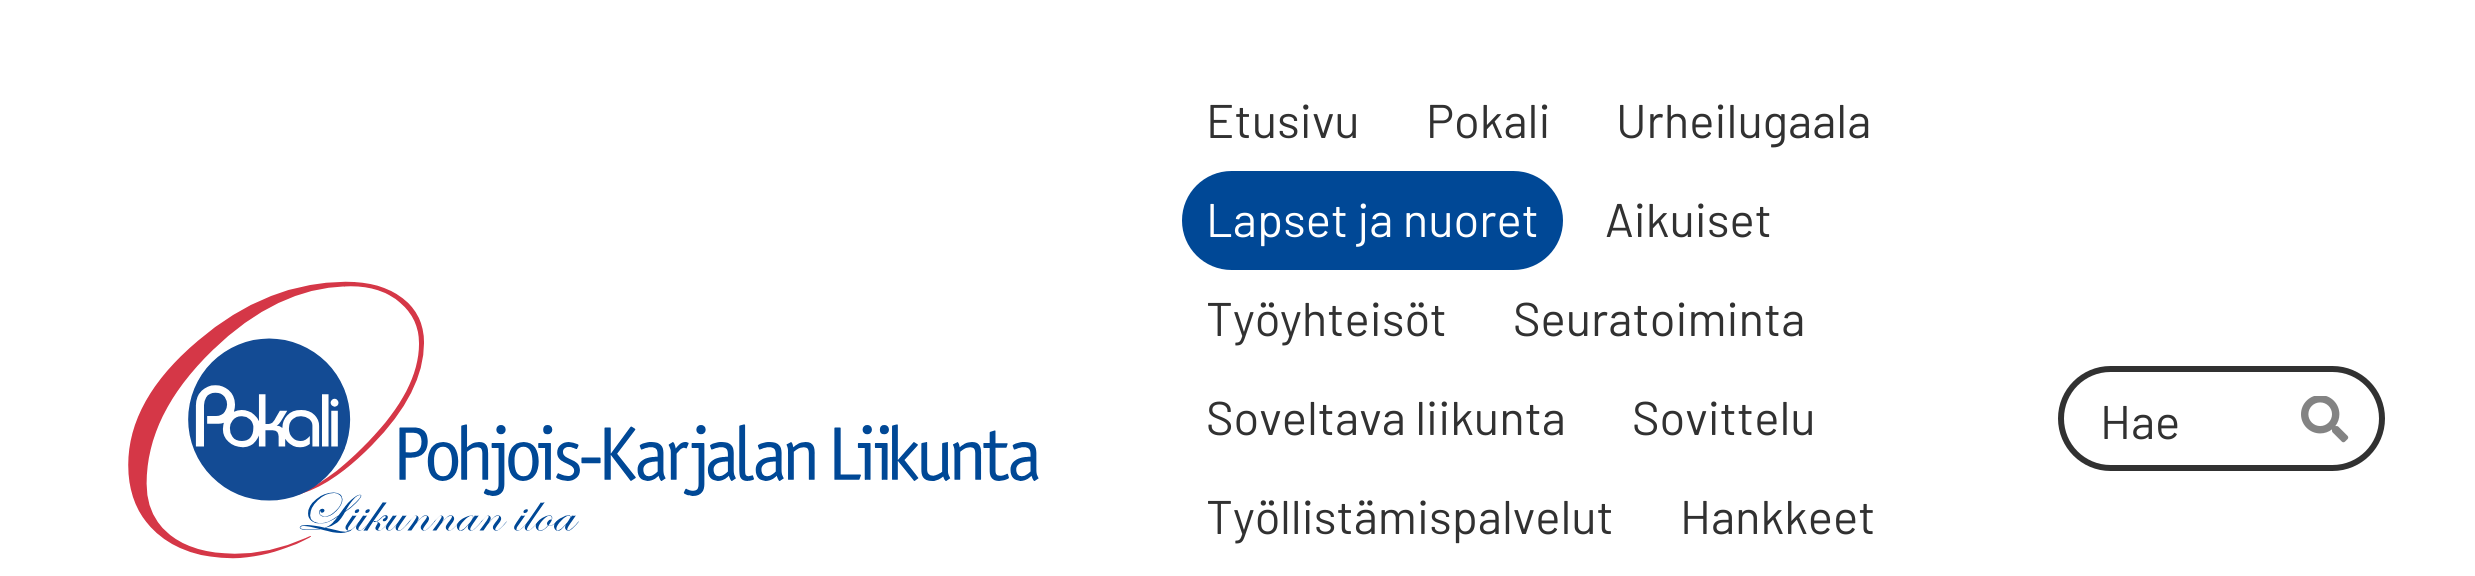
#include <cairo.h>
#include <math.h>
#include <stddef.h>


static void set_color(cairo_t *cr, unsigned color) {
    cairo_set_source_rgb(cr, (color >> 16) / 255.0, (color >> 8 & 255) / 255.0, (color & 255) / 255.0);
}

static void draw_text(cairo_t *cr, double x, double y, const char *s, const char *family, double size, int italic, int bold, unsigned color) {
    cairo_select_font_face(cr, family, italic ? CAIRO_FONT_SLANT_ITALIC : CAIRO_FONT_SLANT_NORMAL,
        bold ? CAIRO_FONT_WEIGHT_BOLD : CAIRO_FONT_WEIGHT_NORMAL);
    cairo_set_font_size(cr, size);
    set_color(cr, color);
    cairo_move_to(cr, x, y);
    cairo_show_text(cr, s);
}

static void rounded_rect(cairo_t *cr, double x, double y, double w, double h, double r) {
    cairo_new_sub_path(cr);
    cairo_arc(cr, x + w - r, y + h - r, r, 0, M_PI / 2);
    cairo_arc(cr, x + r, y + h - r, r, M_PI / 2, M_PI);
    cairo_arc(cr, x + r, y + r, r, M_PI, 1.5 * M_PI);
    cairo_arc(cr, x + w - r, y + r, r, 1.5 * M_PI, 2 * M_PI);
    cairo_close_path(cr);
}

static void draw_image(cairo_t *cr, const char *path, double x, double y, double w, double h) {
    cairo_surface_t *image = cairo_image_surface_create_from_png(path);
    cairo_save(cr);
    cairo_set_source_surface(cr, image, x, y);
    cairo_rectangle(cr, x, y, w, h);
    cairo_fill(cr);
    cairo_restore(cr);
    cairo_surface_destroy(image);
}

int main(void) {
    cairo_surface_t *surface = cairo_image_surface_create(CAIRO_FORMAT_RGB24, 2475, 576);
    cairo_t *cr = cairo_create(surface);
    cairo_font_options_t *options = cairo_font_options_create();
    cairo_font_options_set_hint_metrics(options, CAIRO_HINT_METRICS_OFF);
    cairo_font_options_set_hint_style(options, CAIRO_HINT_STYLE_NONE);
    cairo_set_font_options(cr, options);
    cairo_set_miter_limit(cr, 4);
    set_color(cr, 0xFFFFFF);
    cairo_paint(cr);
    draw_image(cr, "assets/img1.png", 128, 281, 911, 278);
    draw_text(cr, 1206, 138, "Etusivu", "Barlow", 47.25, 0, 0, 0x313131);
    draw_text(cr, 1426, 138, "Pokali", "Barlow", 47.25, 0, 0, 0x313131);
    draw_text(cr, 1616, 138, "Urheilugaala", "Barlow", 47.25, 0, 0, 0x313131);
    set_color(cr, 0x004896);
    rounded_rect(cr, 1182, 171, 381, 99, 49.5);
    cairo_fill(cr);
    draw_text(cr, 1206, 237, "Lapset ja nuoret", "Barlow", 47.25, 0, 0, 0xFFFFFF);
    draw_text(cr, 1605, 237, "Aikuiset", "Barlow", 47.25, 0, 0, 0x313131);
    draw_text(cr, 1206, 336, "Työyhteisöt", "Barlow", 47.25, 0, 0, 0x313131);
    draw_text(cr, 1513, 336, "Seuratoiminta", "Barlow", 47.25, 0, 0, 0x313131);
    draw_text(cr, 1206, 435, "Soveltava liikunta", "Barlow", 47.25, 0, 0, 0x313131);
    draw_text(cr, 1632, 435, "Sovittelu", "Barlow", 47.25, 0, 0, 0x313131);
    draw_text(cr, 1206, 534, "Työllistämispalvelut", "Barlow", 47.25, 0, 0, 0x313131);
    draw_text(cr, 1680, 534, "Hankkeet", "Barlow", 47.25, 0, 0, 0x313131);
    rounded_rect(cr, 2061, 369, 321, 99, 49.5);
    cairo_set_line_width(cr, 6);
    cairo_stroke(cr);
    draw_text(cr, 2100, 439, "Hae", "Barlow", 47.25, 0, 0, 0x313131);
    draw_image(cr, "assets/img2.png", 2301, 396, 48, 47);
    cairo_surface_write_to_png(surface, "output.png");
    cairo_font_options_destroy(options);
    cairo_destroy(cr);
    cairo_surface_destroy(surface);
    return 0;
}
